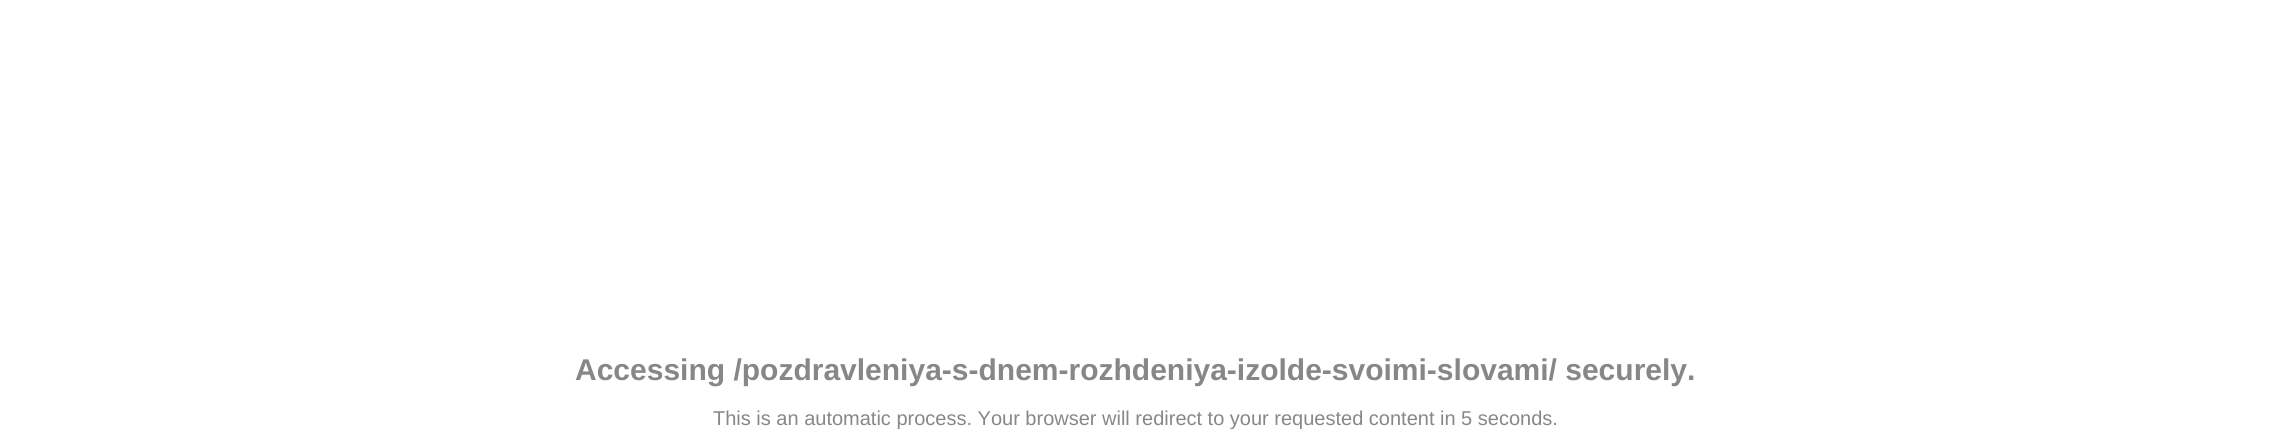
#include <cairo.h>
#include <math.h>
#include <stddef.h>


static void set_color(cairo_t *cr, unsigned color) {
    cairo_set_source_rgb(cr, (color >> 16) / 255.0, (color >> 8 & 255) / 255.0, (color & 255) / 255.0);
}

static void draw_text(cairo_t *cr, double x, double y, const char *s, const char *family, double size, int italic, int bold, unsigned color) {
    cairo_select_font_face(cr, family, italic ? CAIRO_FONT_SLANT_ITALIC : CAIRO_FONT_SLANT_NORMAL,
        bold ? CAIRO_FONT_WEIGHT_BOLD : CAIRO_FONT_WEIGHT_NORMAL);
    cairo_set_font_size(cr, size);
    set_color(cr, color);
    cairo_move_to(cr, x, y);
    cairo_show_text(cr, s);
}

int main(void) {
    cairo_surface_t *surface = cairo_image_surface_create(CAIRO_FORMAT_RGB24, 2270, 429);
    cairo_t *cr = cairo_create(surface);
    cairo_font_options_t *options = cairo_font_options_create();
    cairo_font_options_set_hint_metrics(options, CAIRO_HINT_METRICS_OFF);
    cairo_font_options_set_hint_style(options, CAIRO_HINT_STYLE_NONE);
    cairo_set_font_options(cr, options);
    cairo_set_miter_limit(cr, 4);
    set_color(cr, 0xFFFFFF);
    cairo_paint(cr);
    draw_text(cr, 575, 380, "Accessing /pozdravleniya-s-dnem-rozhdeniya-izolde-svoimi-slovami/ securely.", "Liberation Sans", 30, 0, 1, 0x878787);
    draw_text(cr, 713, 425, "This is an automatic process. Your browser will redirect to your requested content in 5 seconds.", "Liberation Sans", 20, 0, 0, 0x878787);
    cairo_surface_write_to_png(surface, "output.png");
    cairo_font_options_destroy(options);
    cairo_destroy(cr);
    cairo_surface_destroy(surface);
    return 0;
}
